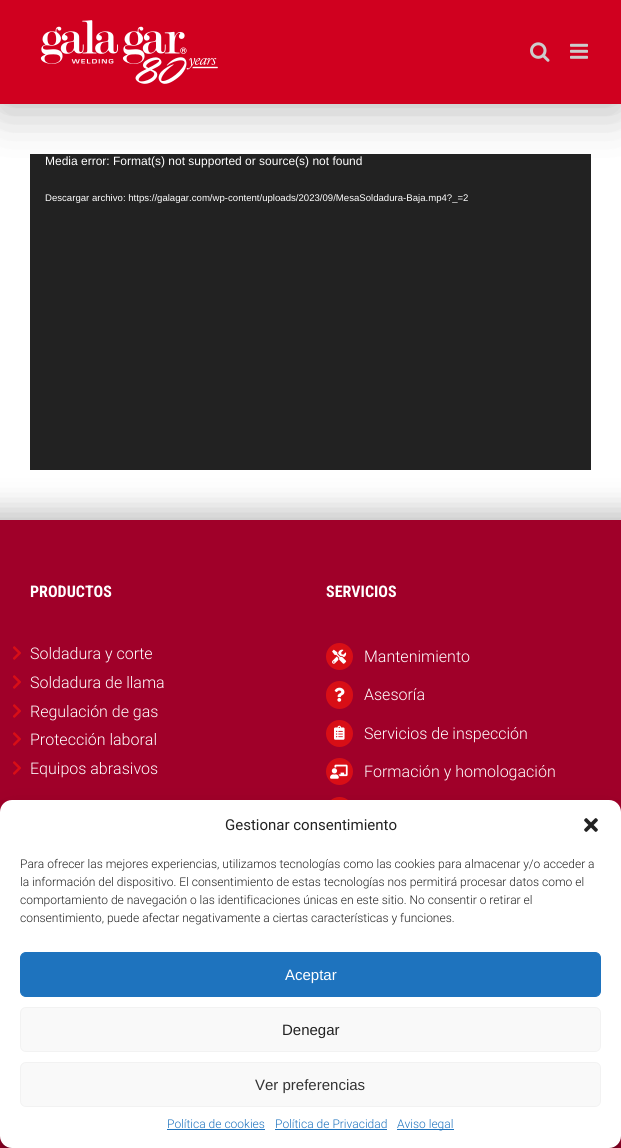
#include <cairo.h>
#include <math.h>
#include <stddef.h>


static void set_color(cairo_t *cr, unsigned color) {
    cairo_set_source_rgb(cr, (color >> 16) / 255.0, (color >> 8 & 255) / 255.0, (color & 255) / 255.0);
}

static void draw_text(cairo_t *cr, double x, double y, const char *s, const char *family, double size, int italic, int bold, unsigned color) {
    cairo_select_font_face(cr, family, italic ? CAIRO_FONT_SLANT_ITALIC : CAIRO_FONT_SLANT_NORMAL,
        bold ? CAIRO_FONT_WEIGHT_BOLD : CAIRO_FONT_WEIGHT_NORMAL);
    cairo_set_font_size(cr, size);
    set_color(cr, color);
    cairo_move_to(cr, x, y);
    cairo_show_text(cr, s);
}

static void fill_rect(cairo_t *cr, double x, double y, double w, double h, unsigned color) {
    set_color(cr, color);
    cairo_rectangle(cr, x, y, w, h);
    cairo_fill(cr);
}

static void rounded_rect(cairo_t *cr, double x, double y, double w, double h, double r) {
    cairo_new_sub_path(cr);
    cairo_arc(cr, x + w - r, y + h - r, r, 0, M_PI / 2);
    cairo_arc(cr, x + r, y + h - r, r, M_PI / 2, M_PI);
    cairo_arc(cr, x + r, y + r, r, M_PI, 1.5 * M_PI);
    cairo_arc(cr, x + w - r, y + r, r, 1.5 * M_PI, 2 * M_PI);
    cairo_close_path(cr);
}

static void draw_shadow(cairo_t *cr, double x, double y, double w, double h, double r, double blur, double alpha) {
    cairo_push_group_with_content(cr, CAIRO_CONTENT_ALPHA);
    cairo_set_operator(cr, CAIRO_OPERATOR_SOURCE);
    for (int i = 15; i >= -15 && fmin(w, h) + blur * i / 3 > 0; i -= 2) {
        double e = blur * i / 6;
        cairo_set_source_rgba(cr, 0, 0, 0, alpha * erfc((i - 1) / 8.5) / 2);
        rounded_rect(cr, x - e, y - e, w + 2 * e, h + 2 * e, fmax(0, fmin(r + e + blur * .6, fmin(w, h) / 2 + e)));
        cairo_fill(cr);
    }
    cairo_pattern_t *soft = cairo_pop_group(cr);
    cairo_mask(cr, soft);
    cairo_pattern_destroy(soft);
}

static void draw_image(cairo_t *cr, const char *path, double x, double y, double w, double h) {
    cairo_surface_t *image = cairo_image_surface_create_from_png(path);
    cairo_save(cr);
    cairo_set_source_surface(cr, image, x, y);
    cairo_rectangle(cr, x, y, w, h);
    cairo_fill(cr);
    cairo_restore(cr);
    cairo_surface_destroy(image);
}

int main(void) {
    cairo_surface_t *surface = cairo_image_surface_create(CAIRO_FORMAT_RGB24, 621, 1148);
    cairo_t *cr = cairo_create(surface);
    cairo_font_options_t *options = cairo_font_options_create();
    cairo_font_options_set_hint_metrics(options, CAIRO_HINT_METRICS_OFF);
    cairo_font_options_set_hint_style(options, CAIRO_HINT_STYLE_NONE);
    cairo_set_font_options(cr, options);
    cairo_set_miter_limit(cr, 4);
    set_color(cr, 0xFFFFFF);
    cairo_paint(cr);
    fill_rect(cr, 30, 154, 561, 316, 0x222222);
    set_color(cr, 0x000000);
    draw_shadow(cr, 2, 12, 617, 100, 0, 25, 0.14);
    draw_shadow(cr, 0, 0, 621, 104, 0, 25, 0.18);
    fill_rect(cr, 0, 0, 621, 104, 0xD0001F);
    draw_image(cr, "assets/img1.png", 40, 20, 178, 64);
    draw_image(cr, "assets/img2.png", 530, 42, 20, 20);
    draw_image(cr, "assets/img3.png", 570, 43, 18, 16);
    draw_text(cr, 45, 165, "Media error: Format(s) not supported or source(s) not found", "Liberation Sans", 12, 0, 0, 0xFFFFFF);
    draw_text(cr, 45, 201, "Descargar archivo: https://galagar.com/wp-content/uploads/2023/09/MesaSoldadura-Baja.mp4?_=2", "Liberation Sans", 9.6, 0, 0, 0xFFFFFF);
    set_color(cr, 0x000000);
    draw_shadow(cr, -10, 510, 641, 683, 0, 15, 0.24);
    fill_rect(cr, 0, 520, 621, 628, 0xA00029);
    draw_text(cr, 30, 597, "PRODUCTOS", "Roboto Condensed", 16, 0, 1, 0xFFFFFF);
    draw_image(cr, "assets/img4.png", 13, 646, 8, 14);
    draw_text(cr, 30, 659, "Soldadura y corte", "Roboto Light", 16, 0, 0, 0xFFFFFF);
    draw_image(cr, "assets/img4.png", 13, 675, 8, 14);
    draw_text(cr, 30, 688, "Soldadura de llama", "Roboto Light", 16, 0, 0, 0xFFFFFF);
    draw_image(cr, "assets/img4.png", 13, 704, 8, 14);
    draw_text(cr, 30, 717, "Regulación de gas", "Roboto Light", 16, 0, 0, 0xFFFFFF);
    draw_image(cr, "assets/img4.png", 13, 732, 8, 14);
    draw_text(cr, 30, 745, "Protección laboral", "Roboto Light", 16, 0, 0, 0xFFFFFF);
    draw_image(cr, "assets/img4.png", 13, 761, 8, 14);
    draw_text(cr, 30, 774, "Equipos abrasivos", "Roboto Light", 16, 0, 0, 0xFFFFFF);
    draw_text(cr, 326, 597, "SERVICIOS", "Roboto Condensed", 16, 0, 1, 0xFFFFFF);
    set_color(cr, 0xD80E16);
    cairo_new_path(cr);
    cairo_arc(cr, 339.5, 656.5, 13.5, 0, 2 * M_PI);
    cairo_fill(cr);
    draw_image(cr, "assets/img5.png", 332, 649, 15, 15);
    draw_text(cr, 364, 662, "Mantenimiento", "Roboto Light", 16, 0, 0, 0xFFFFFF);
    set_color(cr, 0xD80E16);
    rounded_rect(cr, 326, 681, 27, 28, 13.5);
    cairo_fill(cr);
    draw_image(cr, "assets/img6.png", 334, 687, 11, 15);
    draw_text(cr, 364, 700, "Asesoría", "Roboto Light", 16, 0, 0, 0xFFFFFF);
    set_color(cr, 0xD80E16);
    cairo_new_path(cr);
    cairo_arc(cr, 339.5, 733.5, 13.5, 0, 2 * M_PI);
    cairo_fill(cr);
    draw_image(cr, "assets/img7.png", 334, 725, 11, 15);
    draw_text(cr, 364, 739, "Servicios de inspección", "Roboto Light", 16, 0, 0, 0xFFFFFF);
    set_color(cr, 0xD80E16);
    cairo_new_path(cr);
    cairo_arc(cr, 339.5, 771.5, 13.5, 0, 2 * M_PI);
    cairo_fill(cr);
    draw_image(cr, "assets/img8.png", 330, 764, 18, 15);
    draw_text(cr, 364, 777, "Formación y homologación", "Roboto Light", 16, 0, 0, 0xFFFFFF);
    set_color(cr, 0xD80E16);
    cairo_new_path(cr);
    cairo_arc(cr, 339.5, 810.5, 13.5, 0, 2 * M_PI);
    cairo_fill(cr);
    set_color(cr, 0x000000);
    draw_shadow(cr, 0, 806, 621, 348, 12, 3, 0.23);
    draw_shadow(cr, 0, 810, 621, 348, 12, 10, 0.19);
    set_color(cr, 0xFFFFFF);
    rounded_rect(cr, 0, 800, 621, 348, 12);
    cairo_fill(cr);
    draw_text(cr, 225, 830, "Gestionar consentimiento", "Roboto", 15, 0, 0, 0x222222);
    draw_image(cr, "assets/img9.png", 584, 818, 14, 14);
    draw_text(cr, 20, 868, "Para ofrecer las mejores experiencias, utilizamos tecnologías como las cookies para almacenar y/o acceder a", "Roboto Light", 12, 0, 0, 0x222222);
    draw_text(cr, 20, 886, "la información del dispositivo. El consentimiento de estas tecnologías nos permitirá procesar datos como el", "Roboto Light", 12, 0, 0, 0x222222);
    draw_text(cr, 20, 904, "comportamiento de navegación o las identificaciones únicas en este sitio. No consentir o retirar el", "Roboto Light", 12, 0, 0, 0x222222);
    draw_text(cr, 20, 922, "consentimiento, puede afectar negativamente a ciertas características y funciones.", "Roboto Light", 12, 0, 0, 0x222222);
    set_color(cr, 0x1E73BE);
    rounded_rect(cr, 20.5, 952.5, 580, 44, 5.5);
    cairo_fill_preserve(cr);
    cairo_set_line_width(cr, 1);
    cairo_stroke(cr);
    draw_text(cr, 285, 980, "Aceptar", "Liberation Sans", 15, 0, 0, 0xFFFFFF);
    set_color(cr, 0xF9F9F9);
    rounded_rect(cr, 20.5, 1007.5, 580, 44, 5.5);
    cairo_fill_preserve(cr);
    set_color(cr, 0xF2F2F2);
    cairo_stroke(cr);
    draw_text(cr, 282, 1035, "Denegar", "Liberation Sans", 15, 0, 0, 0x222222);
    set_color(cr, 0xF9F9F9);
    rounded_rect(cr, 20.5, 1062.5, 580, 44, 5.5);
    cairo_fill_preserve(cr);
    set_color(cr, 0xF2F2F2);
    cairo_stroke(cr);
    draw_text(cr, 255, 1090, "Ver preferencias", "Liberation Sans", 15, 0, 0, 0x333333);
    draw_text(cr, 167, 1128, "Política de cookies", "Roboto Light", 12, 0, 0, 0x1E73BE);
    fill_rect(cr, 167, 1129, 98, 1, 0x1E73BE);
    draw_text(cr, 275, 1128, "Política de Privacidad", "Roboto Light", 12, 0, 0, 0x1E73BE);
    fill_rect(cr, 275, 1129, 112, 1, 0x1E73BE);
    fill_rect(cr, 397, 1129, 57, 1, 0x1E73BE);
    draw_text(cr, 397, 1128, "Aviso legal", "Roboto Light", 12, 0, 0, 0x1E73BE);
    cairo_surface_write_to_png(surface, "output.png");
    cairo_font_options_destroy(options);
    cairo_destroy(cr);
    cairo_surface_destroy(surface);
    return 0;
}
